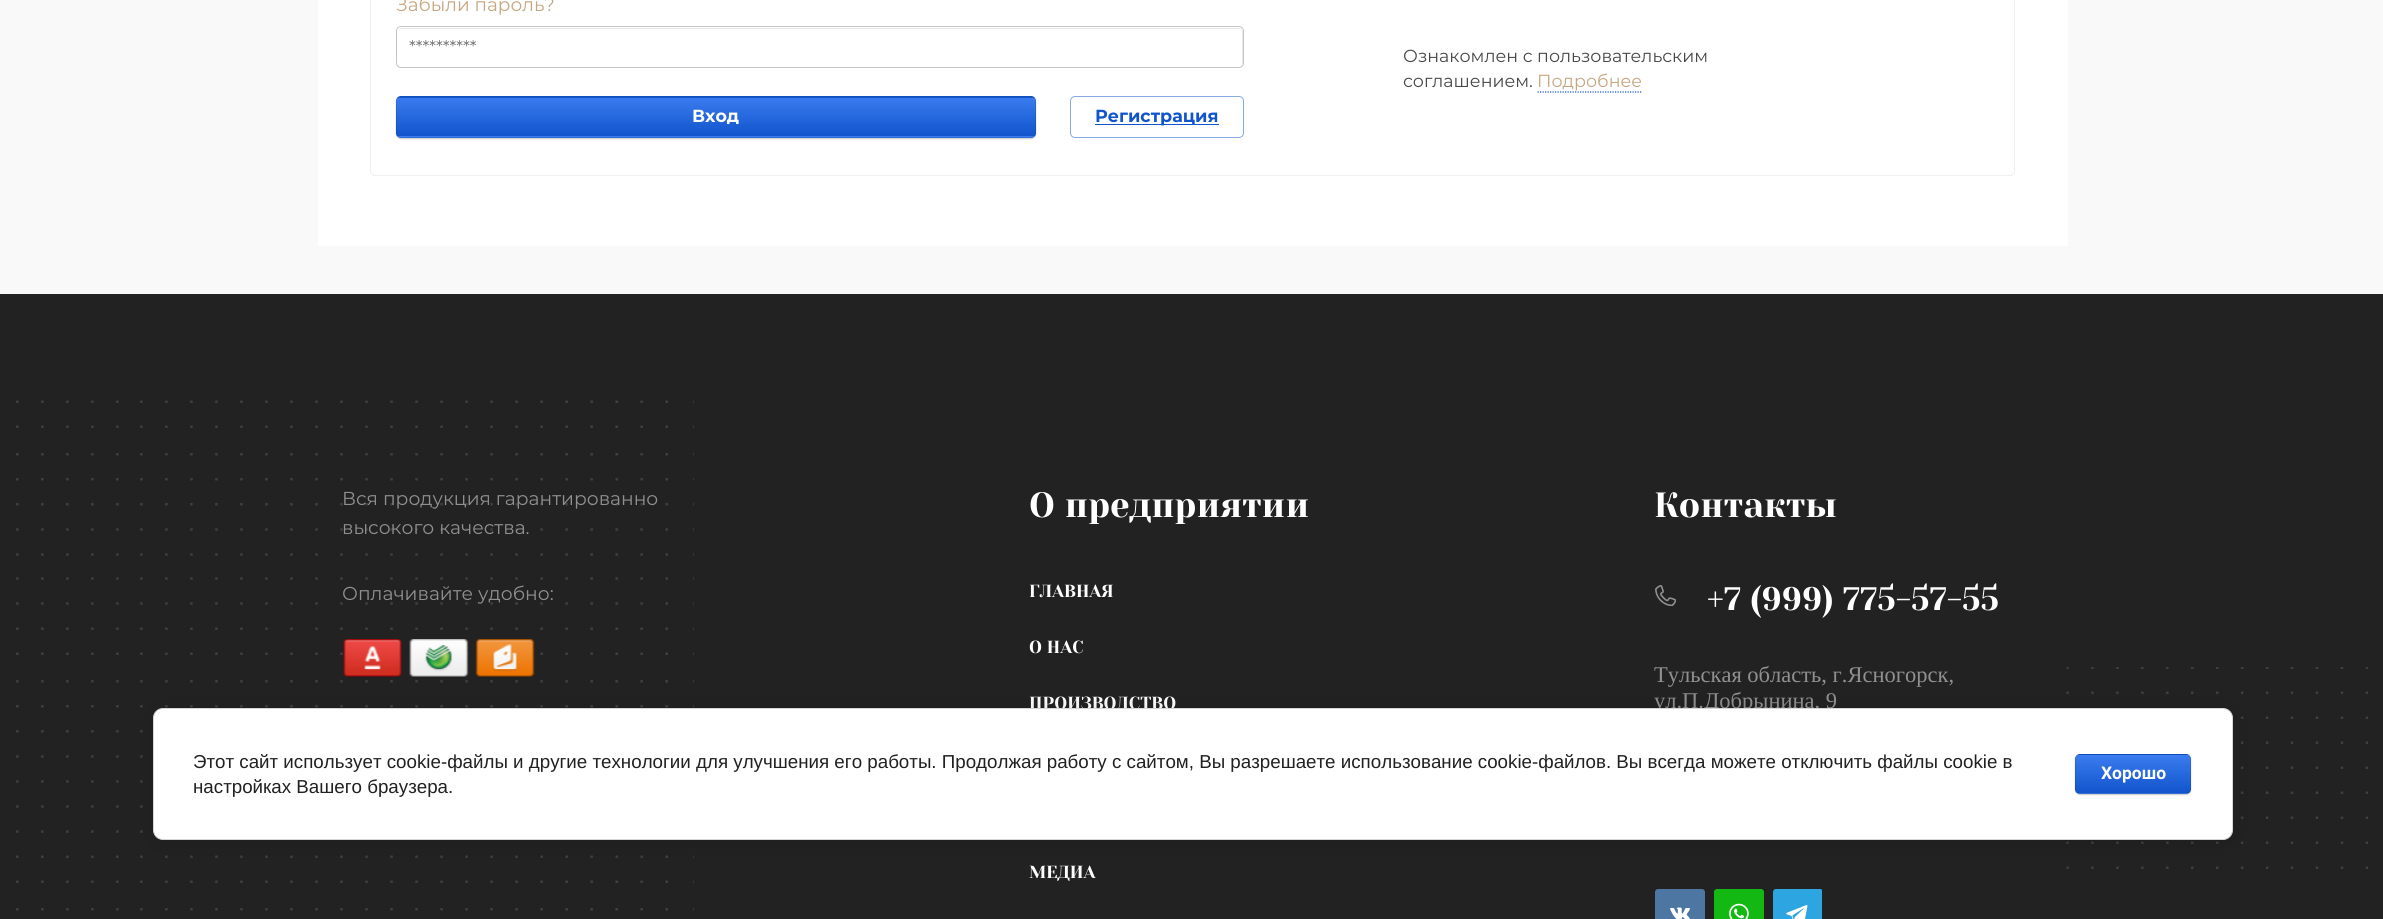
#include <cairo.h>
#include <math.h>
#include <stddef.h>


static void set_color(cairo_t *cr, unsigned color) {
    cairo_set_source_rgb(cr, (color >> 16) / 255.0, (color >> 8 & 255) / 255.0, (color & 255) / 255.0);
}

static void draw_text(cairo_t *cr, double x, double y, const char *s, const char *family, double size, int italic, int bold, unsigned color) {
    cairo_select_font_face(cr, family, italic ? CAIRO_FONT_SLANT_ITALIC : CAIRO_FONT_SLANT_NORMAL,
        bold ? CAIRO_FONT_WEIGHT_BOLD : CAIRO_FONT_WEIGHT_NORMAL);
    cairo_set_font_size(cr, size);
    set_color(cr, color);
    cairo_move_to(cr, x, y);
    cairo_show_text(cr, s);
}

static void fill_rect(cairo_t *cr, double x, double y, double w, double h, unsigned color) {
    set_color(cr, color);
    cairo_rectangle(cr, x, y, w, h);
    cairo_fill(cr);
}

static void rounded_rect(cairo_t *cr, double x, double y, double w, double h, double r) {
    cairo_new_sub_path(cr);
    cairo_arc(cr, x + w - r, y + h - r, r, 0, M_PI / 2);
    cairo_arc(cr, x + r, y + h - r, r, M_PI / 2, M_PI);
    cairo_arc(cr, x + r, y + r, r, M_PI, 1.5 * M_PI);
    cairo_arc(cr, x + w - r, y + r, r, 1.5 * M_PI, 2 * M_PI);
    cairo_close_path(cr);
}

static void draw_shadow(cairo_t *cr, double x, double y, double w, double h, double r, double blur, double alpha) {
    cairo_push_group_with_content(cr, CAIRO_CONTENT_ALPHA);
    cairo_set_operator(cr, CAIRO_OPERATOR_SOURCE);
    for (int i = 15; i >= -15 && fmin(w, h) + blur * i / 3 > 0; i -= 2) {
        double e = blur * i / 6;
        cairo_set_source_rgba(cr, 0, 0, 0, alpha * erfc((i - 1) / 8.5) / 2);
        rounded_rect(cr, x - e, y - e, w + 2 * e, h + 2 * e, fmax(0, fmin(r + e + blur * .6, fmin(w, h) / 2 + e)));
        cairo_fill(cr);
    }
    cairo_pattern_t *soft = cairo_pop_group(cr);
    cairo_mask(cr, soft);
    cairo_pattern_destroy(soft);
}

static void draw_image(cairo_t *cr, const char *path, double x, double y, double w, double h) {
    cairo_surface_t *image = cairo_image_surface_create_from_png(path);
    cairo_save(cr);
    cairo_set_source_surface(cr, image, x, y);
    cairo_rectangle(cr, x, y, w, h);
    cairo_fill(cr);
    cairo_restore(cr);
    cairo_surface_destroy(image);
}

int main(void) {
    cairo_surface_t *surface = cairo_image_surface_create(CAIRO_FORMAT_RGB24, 2383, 919);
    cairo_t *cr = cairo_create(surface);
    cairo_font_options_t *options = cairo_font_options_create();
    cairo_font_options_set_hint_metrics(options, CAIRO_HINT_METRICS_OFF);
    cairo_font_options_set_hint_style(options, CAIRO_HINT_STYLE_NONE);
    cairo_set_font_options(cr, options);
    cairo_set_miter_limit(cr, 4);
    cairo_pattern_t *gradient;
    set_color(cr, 0xF9F9F9);
    cairo_paint(cr);
    fill_rect(cr, 318, 0, 1750, 246, 0xFFFFFF);
    rounded_rect(cr, 370.5, -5.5, 1644, 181, 4.5);
    set_color(cr, 0xEFEFEF);
    cairo_set_line_width(cr, 1);
    cairo_stroke(cr);
    draw_text(cr, 396, 11, "Забыли пароль?", "Montserrat", 18.5, 0, 0, 0xC7A681);
    set_color(cr, 0xE6E6E6);
    cairo_new_path(cr);
    cairo_move_to(cr, 401, 29);
    cairo_line_to(cr, 1239, 29);
    cairo_curve_to(cr, 1241, 29, 1242, 30, 1242, 32);
    cairo_line_to(cr, 1242, 65);
    cairo_curve_to(cr, 1243, 64, 1243, 63, 1243, 62);
    cairo_line_to(cr, 1243, 32);
    cairo_curve_to(cr, 1243, 30, 1241, 28, 1239, 28);
    cairo_line_to(cr, 402, 28);
    cairo_curve_to(cr, 401, 28, 399, 29, 399, 30);
    cairo_close_path(cr);
    cairo_fill(cr);
    rounded_rect(cr, 396.5, 26.5, 847, 41, 4.5);
    set_color(cr, 0xC5C5C5);
    cairo_stroke(cr);
    draw_text(cr, 409, 53, "**********", "Montserrat", 17.5, 0, 0, 0x757575);
    set_color(cr, 0x000000);
    draw_shadow(cr, 396, 98, 640, 41, 5, 0.5, 0.2);
    cairo_save(cr);
    rounded_rect(cr, 396, 96, 640, 42, 5);
    cairo_clip(cr);
    gradient = cairo_pattern_create_linear(716, 59, 716, 98);
    cairo_pattern_add_color_stop_rgba(gradient, 0, 0.231, 0.486, 0.937, 1);
    cairo_pattern_add_color_stop_rgba(gradient, 1, 0.067, 0.333, 0.8, 1);
    cairo_set_source(cr, gradient);
    cairo_pattern_destroy(gradient);
    cairo_rectangle(cr, 396, 96, 640, 2);
    cairo_fill(cr);
    gradient = cairo_pattern_create_linear(716, 97, 716, 136);
    cairo_pattern_add_color_stop_rgba(gradient, 0, 0.231, 0.486, 0.937, 1);
    cairo_pattern_add_color_stop_rgba(gradient, 1, 0.067, 0.333, 0.8, 1);
    cairo_set_source(cr, gradient);
    cairo_pattern_destroy(gradient);
    cairo_rectangle(cr, 396, 98, 640, 38);
    cairo_fill(cr);
    gradient = cairo_pattern_create_linear(716, 136, 716, 175);
    cairo_pattern_add_color_stop_rgba(gradient, 0, 0.231, 0.486, 0.937, 1);
    cairo_pattern_add_color_stop_rgba(gradient, 1, 0.067, 0.333, 0.8, 1);
    cairo_set_source(cr, gradient);
    cairo_pattern_destroy(gradient);
    cairo_rectangle(cr, 396, 136, 640, 2);
    cairo_fill(cr);
    cairo_restore(cr);
    rounded_rect(cr, 396.5, 96.5, 639, 41, 4.5);
    cairo_set_source_rgba(cr, 0, 0, 0, 0.1);
    cairo_stroke(cr);
    draw_text(cr, 692, 122, "Вход", "Montserrat", 17.5, 0, 1, 0xFFFFFF);
    rounded_rect(cr, 1070.5, 96.5, 173, 41, 4.5);
    set_color(cr, 0x88AAE6);
    cairo_stroke(cr);
    fill_rect(cr, 1095, 124, 124, 1, 0x1155CC);
    draw_text(cr, 1095, 122, "Регистрация", "Montserrat", 17.5, 0, 1, 0x1155CC);
    draw_text(cr, 1403, 62, "Ознакомлен с пользовательским", "Montserrat", 17.5, 0, 0, 0x484848);
    draw_text(cr, 1403, 87, "соглашением.", "Montserrat", 17.5, 0, 0, 0x484848);
    draw_text(cr, 1537, 87, "Подробнее", "Montserrat", 17.5, 0, 0, 0xC7A681);
    cairo_new_path(cr);
    cairo_move_to(cr, 1537.5, 92);
    cairo_line_to(cr, 1642.5, 92);
    set_color(cr, 0x1155CC);
    cairo_set_line_width(cr, 1.2);
    cairo_set_dash(cr, (double[]){1.25, 1.25}, 2, 0);
    cairo_stroke(cr);
    fill_rect(cr, 0, 294, 2383, 625, 0x222222);
    draw_image(cr, "assets/img1.png", 16, 400, 2352, 511);
    draw_text(cr, 342, 505, "Вся продукция гарантированно", "Montserrat", 18.75, 0, 0, 0x919090);
    draw_text(cr, 342, 534, "высокого качества.", "Montserrat", 18.75, 0, 0, 0x919090);
    draw_text(cr, 342, 600, "Оплачивайте удобно:", "Montserrat", 18.75, 0, 0, 0x919090);
    draw_image(cr, "assets/img2.png", 343, 639, 59, 39);
    draw_image(cr, "assets/img3.png", 409, 639, 60, 39);
    draw_image(cr, "assets/img4.png", 475, 639, 60, 39);
    draw_text(cr, 1029, 517, "О предприятии", "Yeseva One", 35, 0, 0, 0xFFFFFF);
    draw_text(cr, 1029, 597, "ГЛАВНАЯ", "Yeseva One", 17.5, 0, 0, 0xFFFFFF);
    draw_text(cr, 1029, 653, "О НАС", "Yeseva One", 17.5, 0, 0, 0xFFFFFF);
    draw_text(cr, 1029, 709, "ПРОИЗВОДСТВО", "Yeseva One", 17.5, 0, 0, 0xFFFFFF);
    draw_text(cr, 1029, 878, "МЕДИА", "Yeseva One", 17.5, 0, 0, 0xFFFFFF);
    draw_text(cr, 1654, 517, "Контакты", "Yeseva One", 35, 0, 0, 0xFFFFFF);
    draw_image(cr, "assets/img5.png", 1655, 585, 21, 21);
    draw_text(cr, 1707, 610, "+7 (999) 775-57-55", "Yeseva One", 32.5, 0, 0, 0xFFFFFF);
    draw_text(cr, 1654, 682, "Тульская область, г.Ясногорск,", "Liberation Serif", 22.5, 0, 0, 0x919090);
    draw_text(cr, 1654, 708, "ул.П.Добрынина, 9", "Liberation Serif", 22.5, 0, 0, 0x919090);
    draw_image(cr, "assets/img6.png", 1655, 889, 50, 30);
    draw_image(cr, "assets/img7.png", 1714, 889, 50, 30);
    draw_image(cr, "assets/img8.png", 1773, 889, 49, 30);
    set_color(cr, 0x000000);
    draw_shadow(cr, 155, 710, 2080, 133, 10, 11, 0.14);
    set_color(cr, 0xFFFFFF);
    rounded_rect(cr, 153.5, 708.5, 2079, 131, 9.5);
    cairo_fill_preserve(cr);
    set_color(cr, 0xD6D6D6);
    cairo_set_line_width(cr, 1);
    cairo_set_dash(cr, NULL, 0, 0);
    cairo_stroke(cr);
    draw_text(cr, 193, 768, "Этот сайт использует cookie-файлы и другие технологии для улучшения его работы. Продолжая работу с сайтом, Вы разрешаете использование cookie-файлов. Вы всегда можете отключить файлы cookie в", "Liberation Sans", 18.75, 0, 0, 0x212121);
    draw_text(cr, 193, 793, "настройках Вашего браузера.", "Liberation Sans", 18.75, 0, 0, 0x212121);
    set_color(cr, 0x000000);
    draw_shadow(cr, 2075, 755, 116, 40, 5, 0.5, 0.2);
    cairo_save(cr);
    rounded_rect(cr, 2075, 754, 116, 40, 5);
    cairo_clip(cr);
    gradient = cairo_pattern_create_linear(2133, 718, 2133, 755);
    cairo_pattern_add_color_stop_rgba(gradient, 0, 0.231, 0.486, 0.937, 1);
    cairo_pattern_add_color_stop_rgba(gradient, 1, 0.067, 0.333, 0.8, 1);
    cairo_set_source(cr, gradient);
    cairo_pattern_destroy(gradient);
    cairo_rectangle(cr, 2075, 754, 116, 1);
    cairo_fill(cr);
    gradient = cairo_pattern_create_linear(2133, 755, 2133, 793);
    cairo_pattern_add_color_stop_rgba(gradient, 0, 0.231, 0.486, 0.937, 1);
    cairo_pattern_add_color_stop_rgba(gradient, 1, 0.067, 0.333, 0.8, 1);
    cairo_set_source(cr, gradient);
    cairo_pattern_destroy(gradient);
    cairo_rectangle(cr, 2075, 755, 116, 38);
    cairo_fill(cr);
    gradient = cairo_pattern_create_linear(2133, 793, 2133, 830);
    cairo_pattern_add_color_stop_rgba(gradient, 0, 0.231, 0.486, 0.937, 1);
    cairo_pattern_add_color_stop_rgba(gradient, 1, 0.067, 0.333, 0.8, 1);
    cairo_set_source(cr, gradient);
    cairo_pattern_destroy(gradient);
    cairo_rectangle(cr, 2075, 793, 116, 1);
    cairo_fill(cr);
    cairo_restore(cr);
    rounded_rect(cr, 2075.5, 754.5, 115, 39, 4.5);
    cairo_set_source_rgba(cr, 0, 0, 0, 0.1);
    cairo_stroke(cr);
    draw_text(cr, 2101, 779, "Хорошо", "Roboto", 17.5, 0, 1, 0xFFFFFF);
    cairo_surface_write_to_png(surface, "output.png");
    cairo_font_options_destroy(options);
    cairo_destroy(cr);
    cairo_surface_destroy(surface);
    return 0;
}
